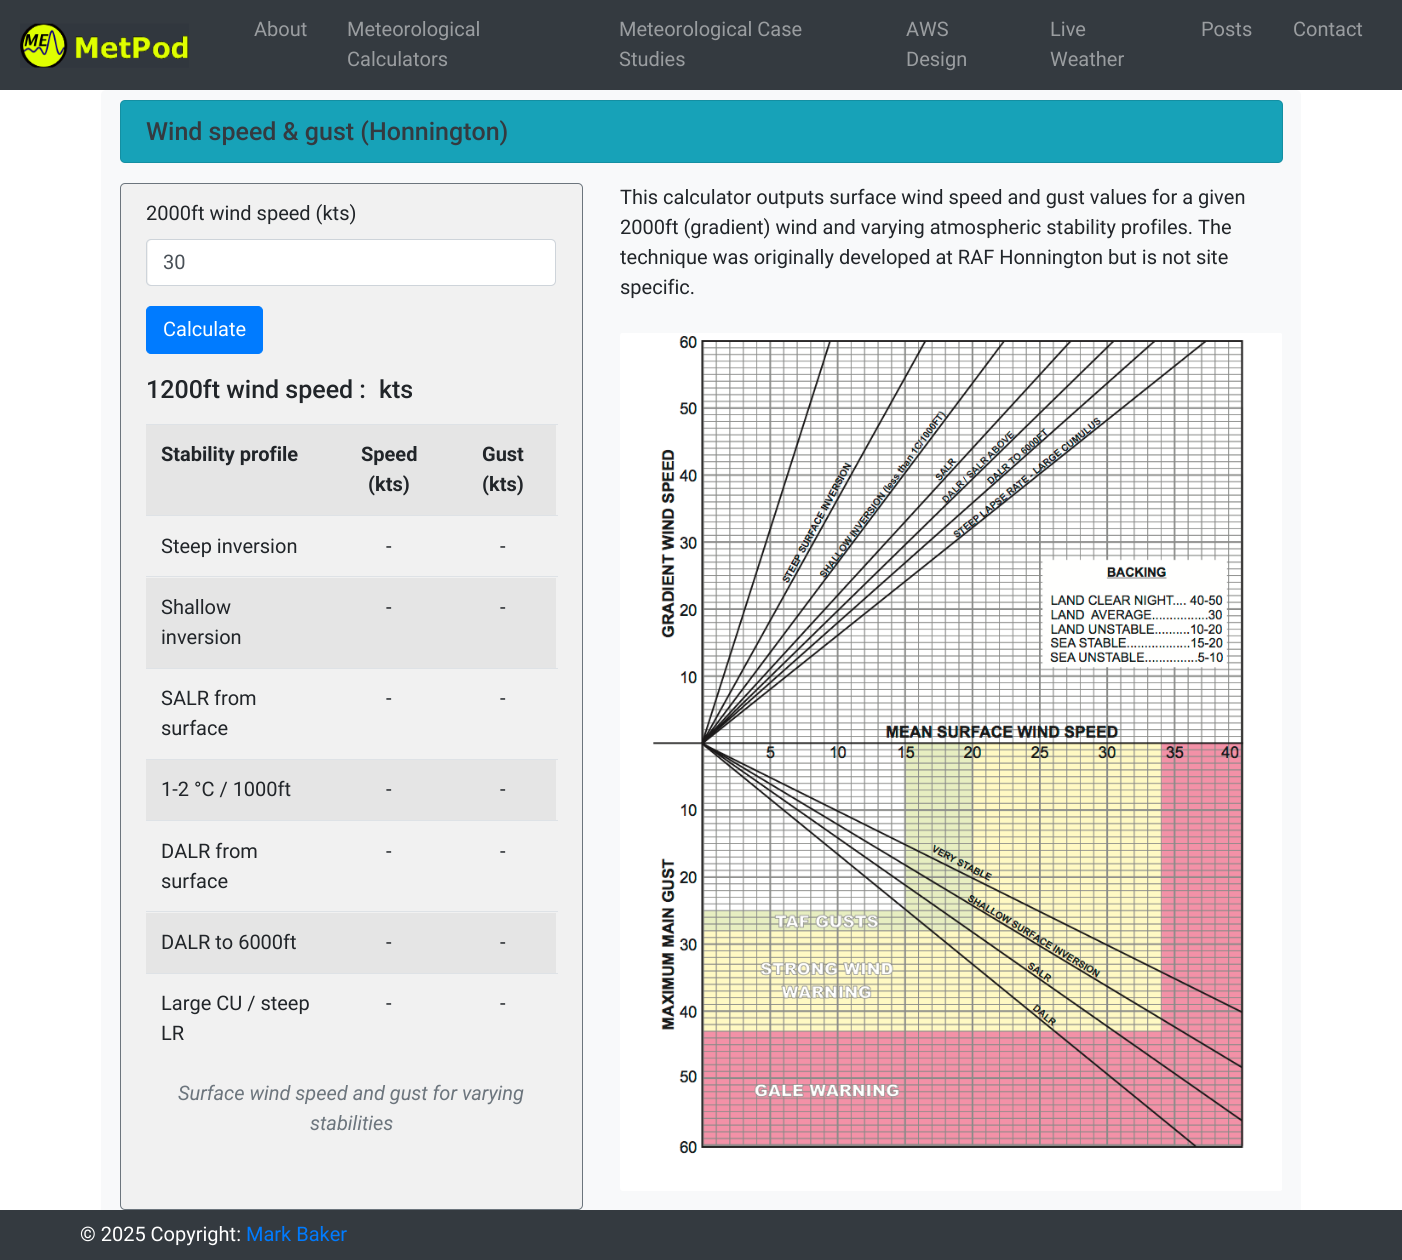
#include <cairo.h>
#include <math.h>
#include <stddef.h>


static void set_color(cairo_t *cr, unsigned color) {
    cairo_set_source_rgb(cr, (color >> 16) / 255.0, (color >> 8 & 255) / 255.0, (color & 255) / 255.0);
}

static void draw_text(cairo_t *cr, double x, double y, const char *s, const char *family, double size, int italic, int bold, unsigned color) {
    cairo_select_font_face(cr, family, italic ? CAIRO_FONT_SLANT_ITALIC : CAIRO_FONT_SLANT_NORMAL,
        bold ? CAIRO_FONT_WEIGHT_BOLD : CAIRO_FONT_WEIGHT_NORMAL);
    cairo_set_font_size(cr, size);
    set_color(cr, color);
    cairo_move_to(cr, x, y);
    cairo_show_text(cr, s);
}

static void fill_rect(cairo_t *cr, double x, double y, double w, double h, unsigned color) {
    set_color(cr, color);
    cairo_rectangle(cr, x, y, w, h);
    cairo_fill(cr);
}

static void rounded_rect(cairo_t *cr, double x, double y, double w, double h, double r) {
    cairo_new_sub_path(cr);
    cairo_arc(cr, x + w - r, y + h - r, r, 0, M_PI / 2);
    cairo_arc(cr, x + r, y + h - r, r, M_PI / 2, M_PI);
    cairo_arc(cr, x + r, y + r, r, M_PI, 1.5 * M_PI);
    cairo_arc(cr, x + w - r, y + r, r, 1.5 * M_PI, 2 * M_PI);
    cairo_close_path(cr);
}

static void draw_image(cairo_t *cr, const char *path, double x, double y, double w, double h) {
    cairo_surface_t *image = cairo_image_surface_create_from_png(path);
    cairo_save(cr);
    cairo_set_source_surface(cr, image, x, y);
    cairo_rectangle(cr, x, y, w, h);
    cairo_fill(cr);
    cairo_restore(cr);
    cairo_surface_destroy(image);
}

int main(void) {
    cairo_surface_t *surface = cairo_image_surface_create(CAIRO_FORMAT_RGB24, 1402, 1260);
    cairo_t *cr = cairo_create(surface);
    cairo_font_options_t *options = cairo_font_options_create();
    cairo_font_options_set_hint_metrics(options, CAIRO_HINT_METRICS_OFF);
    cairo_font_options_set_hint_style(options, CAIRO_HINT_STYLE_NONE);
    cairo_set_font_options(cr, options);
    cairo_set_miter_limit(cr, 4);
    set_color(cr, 0xFFFFFF);
    cairo_paint(cr);
    fill_rect(cr, 0, 0, 1402, 90, 0x343A40);
    draw_image(cr, "assets/img1.png", 20, 23, 169, 45);
    draw_text(cr, 254, 36, "About", "Roboto", 20, 0, 0, 0x9A9DA0);
    draw_text(cr, 347, 36, "Meteorological", "Roboto", 20, 0, 0, 0x9A9DA0);
    draw_text(cr, 347, 66, "Calculators", "Roboto", 20, 0, 0, 0x9A9DA0);
    draw_text(cr, 619, 36, "Meteorological Case", "Roboto", 20, 0, 0, 0x9A9DA0);
    draw_text(cr, 619, 66, "Studies", "Roboto", 20, 0, 0, 0x9A9DA0);
    draw_text(cr, 906, 36, "AWS", "Roboto", 20, 0, 0, 0x9A9DA0);
    draw_text(cr, 906, 66, "Design", "Roboto", 20, 0, 0, 0x9A9DA0);
    draw_text(cr, 1050, 36, "Live", "Roboto", 20, 0, 0, 0x9A9DA0);
    draw_text(cr, 1050, 66, "Weather", "Roboto", 20, 0, 0, 0x9A9DA0);
    draw_text(cr, 1201, 36, "Posts", "Roboto", 20, 0, 0, 0x9A9DA0);
    draw_text(cr, 1293, 36, "Contact", "Roboto", 20, 0, 0, 0x9A9DA0);
    set_color(cr, 0xF8F9FA);
    rounded_rect(cr, 101, 90, 1200, 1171, 5);
    cairo_fill(cr);
    set_color(cr, 0x17A2B8);
    rounded_rect(cr, 120, 100, 1163, 63, 5);
    cairo_fill(cr);
    rounded_rect(cr, 120.5, 100.5, 1162, 62, 4.5);
    cairo_set_source_rgba(cr, 0, 0, 0, 0.12);
    cairo_set_line_width(cr, 1);
    cairo_stroke(cr);
    draw_text(cr, 146, 140, "Wind speed & gust (Honnington)", "Roboto Medium", 25, 0, 0, 0x343A40);
    set_color(cr, 0xF1F1F1);
    rounded_rect(cr, 120.5, 183.5, 462, 1026, 4.5);
    cairo_fill_preserve(cr);
    set_color(cr, 0x6C757D);
    cairo_stroke(cr);
    draw_text(cr, 146, 220, "2000ft wind speed (kts)", "Roboto", 20, 0, 0, 0x212529);
    set_color(cr, 0xFFFFFF);
    rounded_rect(cr, 148, 240, 407, 45, 4);
    cairo_fill(cr);
    rounded_rect(cr, 146.5, 239.5, 409, 46, 4.5);
    set_color(cr, 0xCED4DA);
    cairo_stroke(cr);
    draw_text(cr, 163, 269, "30", "Roboto", 20, 0, 0, 0x495057);
    set_color(cr, 0x007BFF);
    rounded_rect(cr, 146.5, 306.5, 116, 47, 4.5);
    cairo_fill_preserve(cr);
    cairo_stroke(cr);
    draw_text(cr, 163, 336, "Calculate", "Roboto", 20, 0, 0, 0xFFFFFF);
    draw_text(cr, 146, 398, "1200ft wind speed :", "Roboto Medium", 25, 0, 0, 0x212529);
    draw_text(cr, 379, 398, "kts", "Roboto Medium", 25, 0, 0, 0x212529);
    fill_rect(cr, 146, 425, 410, 90, 0xE5E5E5);
    draw_text(cr, 161, 461, "Stability profile", "Roboto", 20, 0, 1, 0x212529);
    draw_text(cr, 361, 461, "Speed", "Roboto", 20, 0, 1, 0x212529);
    draw_text(cr, 368, 491, "(kts)", "Roboto", 20, 0, 1, 0x212529);
    fill_rect(cr, 146, 424, 412, 1, 0xDEE2E6);
    draw_text(cr, 482, 461, "Gust", "Roboto", 20, 0, 1, 0x212529);
    draw_text(cr, 482, 491, "(kts)", "Roboto", 20, 0, 1, 0x212529);
    draw_text(cr, 161, 553, "Steep inversion", "Roboto", 20, 0, 0, 0x212529);
    draw_text(cr, 386, 553, "-", "Roboto", 20, 0, 0, 0x212529);
    fill_rect(cr, 146, 515, 412, 1, 0xDEE2E6);
    draw_text(cr, 500, 553, "-", "Roboto", 20, 0, 0, 0x212529);
    fill_rect(cr, 146, 578, 410, 90, 0xE5E5E5);
    draw_text(cr, 161, 614, "Shallow", "Roboto", 20, 0, 0, 0x212529);
    draw_text(cr, 161, 644, "inversion", "Roboto", 20, 0, 0, 0x212529);
    draw_text(cr, 386, 614, "-", "Roboto", 20, 0, 0, 0x212529);
    fill_rect(cr, 146, 576, 412, 1, 0xDEE2E6);
    draw_text(cr, 500, 614, "-", "Roboto", 20, 0, 0, 0x212529);
    draw_text(cr, 161, 705, "SALR from", "Roboto", 20, 0, 0, 0x212529);
    draw_text(cr, 161, 735, "surface", "Roboto", 20, 0, 0, 0x212529);
    draw_text(cr, 386, 705, "-", "Roboto", 20, 0, 0, 0x212529);
    fill_rect(cr, 146, 668, 412, 1, 0xDEE2E6);
    draw_text(cr, 500, 705, "-", "Roboto", 20, 0, 0, 0x212529);
    fill_rect(cr, 146, 760, 410, 60, 0xE5E5E5);
    draw_text(cr, 161, 796, "1-2 °C / 1000ft", "Roboto", 20, 0, 0, 0x212529);
    draw_text(cr, 386, 796, "-", "Roboto", 20, 0, 0, 0x212529);
    fill_rect(cr, 146, 759, 412, 1, 0xDEE2E6);
    draw_text(cr, 500, 796, "-", "Roboto", 20, 0, 0, 0x212529);
    draw_text(cr, 161, 858, "DALR from", "Roboto", 20, 0, 0, 0x212529);
    draw_text(cr, 161, 888, "surface", "Roboto", 20, 0, 0, 0x212529);
    draw_text(cr, 386, 858, "-", "Roboto", 20, 0, 0, 0x212529);
    fill_rect(cr, 146, 820, 412, 1, 0xDEE2E6);
    draw_text(cr, 500, 858, "-", "Roboto", 20, 0, 0, 0x212529);
    fill_rect(cr, 146, 913, 410, 60, 0xE5E5E5);
    draw_text(cr, 161, 949, "DALR to 6000ft", "Roboto", 20, 0, 0, 0x212529);
    draw_text(cr, 386, 949, "-", "Roboto", 20, 0, 0, 0x212529);
    fill_rect(cr, 146, 911, 412, 1, 0xDEE2E6);
    draw_text(cr, 500, 949, "-", "Roboto", 20, 0, 0, 0x212529);
    draw_text(cr, 161, 1010, "Large CU / steep", "Roboto", 20, 0, 0, 0x212529);
    draw_text(cr, 161, 1040, "LR", "Roboto", 20, 0, 0, 0x212529);
    draw_text(cr, 386, 1010, "-", "Roboto", 20, 0, 0, 0x212529);
    fill_rect(cr, 146, 973, 412, 1, 0xDEE2E6);
    draw_text(cr, 500, 1010, "-", "Roboto", 20, 0, 0, 0x212529);
    draw_text(cr, 178, 1100, "Surface wind speed and gust for varying", "Roboto", 20, 1, 0, 0x6C757D);
    draw_text(cr, 310, 1130, "stabilities", "Roboto", 20, 1, 0, 0x6C757D);
    draw_text(cr, 620, 204, "This calculator outputs surface wind speed and gust values for a given", "Roboto", 20, 0, 0, 0x212529);
    draw_text(cr, 620, 234, "2000ft (gradient) wind and varying atmospheric stability profiles. The", "Roboto", 20, 0, 0, 0x212529);
    draw_text(cr, 620, 264, "technique was originally developed at RAF Honnington but is not site", "Roboto", 20, 0, 0, 0x212529);
    draw_text(cr, 620, 294, "specific.", "Roboto", 20, 0, 0, 0x212529);
    draw_image(cr, "assets/img2.png", 620, 333, 662, 858);
    fill_rect(cr, 0, 1210, 1402, 50, 0x343A40);
    draw_text(cr, 80, 1241, "© 2025 Copyright:", "Roboto", 20, 0, 0, 0xFFFFFF);
    draw_text(cr, 246, 1241, "Mark Baker", "Roboto", 20, 0, 0, 0x007BFF);
    cairo_surface_write_to_png(surface, "output.png");
    cairo_font_options_destroy(options);
    cairo_destroy(cr);
    cairo_surface_destroy(surface);
    return 0;
}
